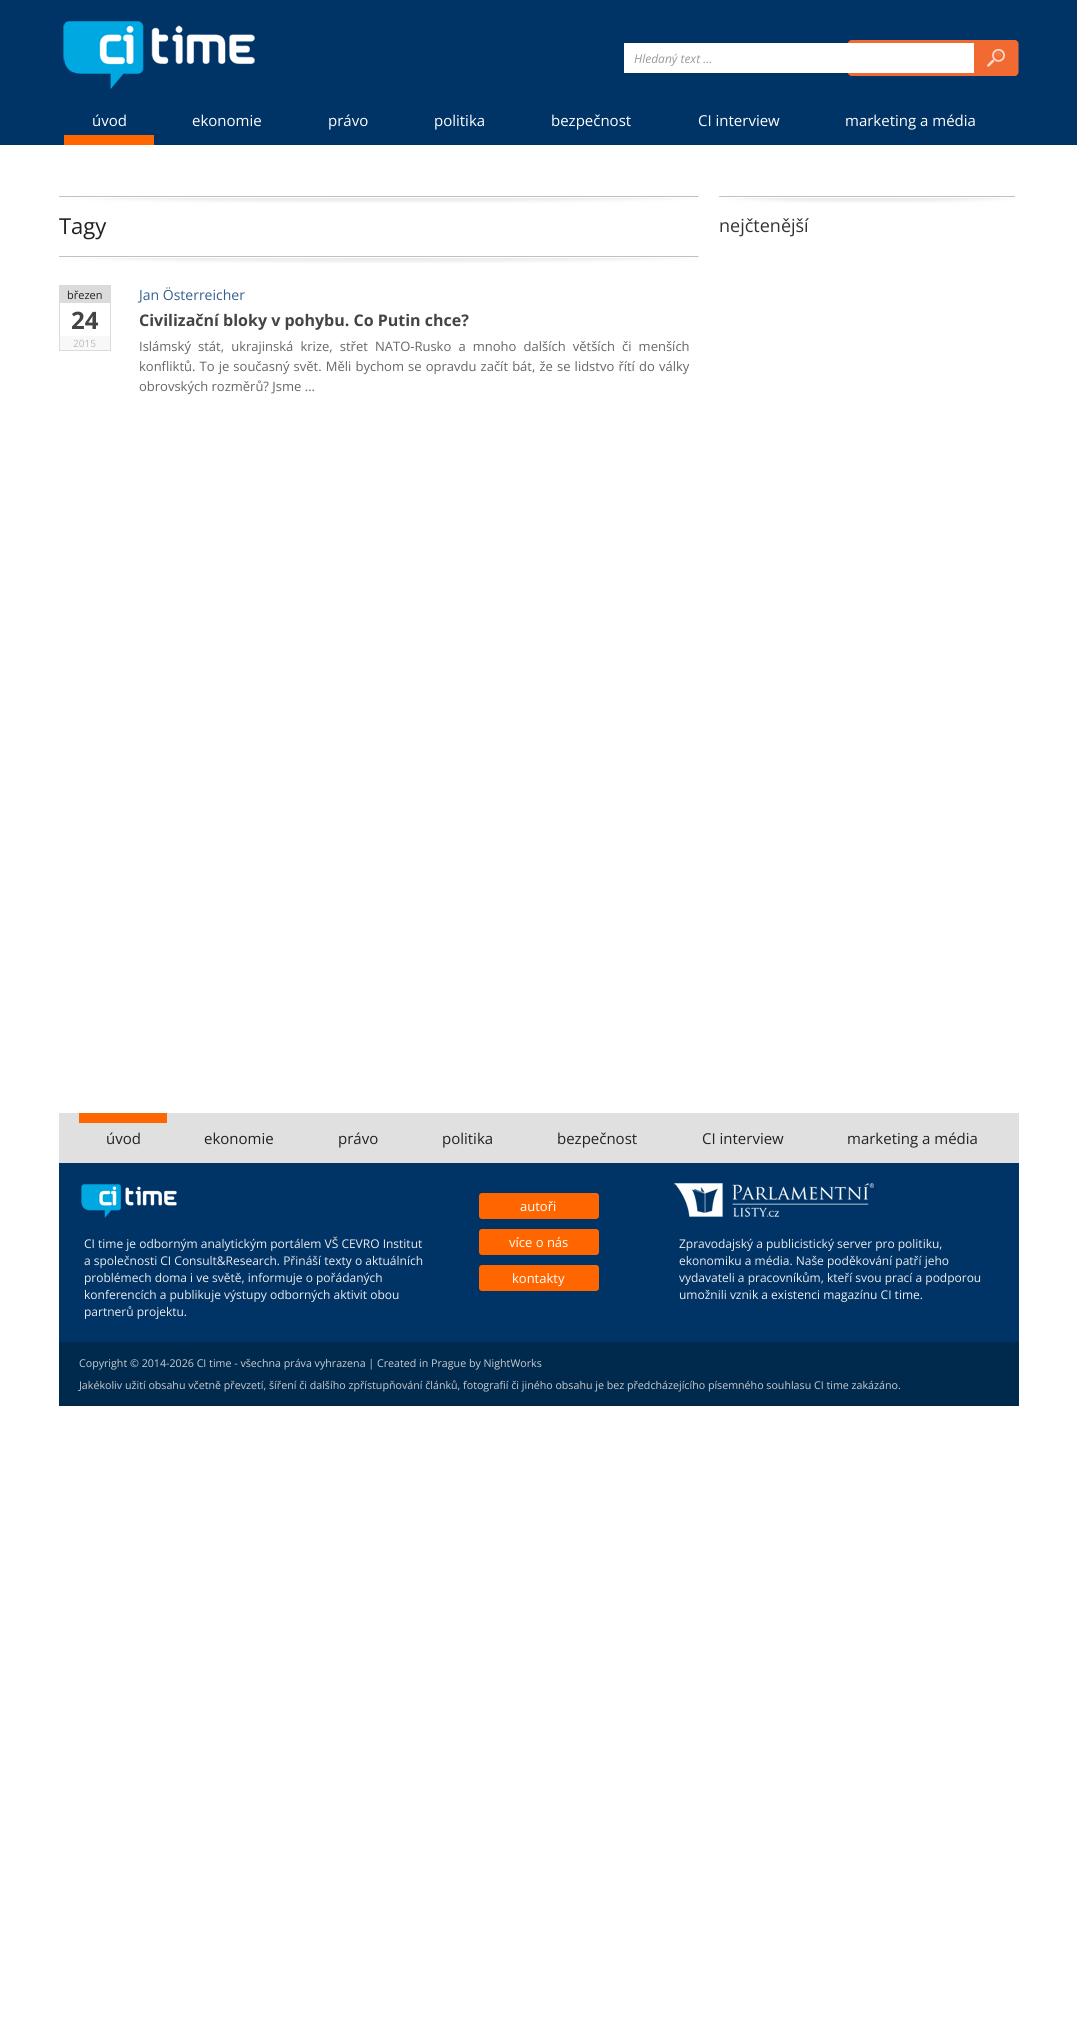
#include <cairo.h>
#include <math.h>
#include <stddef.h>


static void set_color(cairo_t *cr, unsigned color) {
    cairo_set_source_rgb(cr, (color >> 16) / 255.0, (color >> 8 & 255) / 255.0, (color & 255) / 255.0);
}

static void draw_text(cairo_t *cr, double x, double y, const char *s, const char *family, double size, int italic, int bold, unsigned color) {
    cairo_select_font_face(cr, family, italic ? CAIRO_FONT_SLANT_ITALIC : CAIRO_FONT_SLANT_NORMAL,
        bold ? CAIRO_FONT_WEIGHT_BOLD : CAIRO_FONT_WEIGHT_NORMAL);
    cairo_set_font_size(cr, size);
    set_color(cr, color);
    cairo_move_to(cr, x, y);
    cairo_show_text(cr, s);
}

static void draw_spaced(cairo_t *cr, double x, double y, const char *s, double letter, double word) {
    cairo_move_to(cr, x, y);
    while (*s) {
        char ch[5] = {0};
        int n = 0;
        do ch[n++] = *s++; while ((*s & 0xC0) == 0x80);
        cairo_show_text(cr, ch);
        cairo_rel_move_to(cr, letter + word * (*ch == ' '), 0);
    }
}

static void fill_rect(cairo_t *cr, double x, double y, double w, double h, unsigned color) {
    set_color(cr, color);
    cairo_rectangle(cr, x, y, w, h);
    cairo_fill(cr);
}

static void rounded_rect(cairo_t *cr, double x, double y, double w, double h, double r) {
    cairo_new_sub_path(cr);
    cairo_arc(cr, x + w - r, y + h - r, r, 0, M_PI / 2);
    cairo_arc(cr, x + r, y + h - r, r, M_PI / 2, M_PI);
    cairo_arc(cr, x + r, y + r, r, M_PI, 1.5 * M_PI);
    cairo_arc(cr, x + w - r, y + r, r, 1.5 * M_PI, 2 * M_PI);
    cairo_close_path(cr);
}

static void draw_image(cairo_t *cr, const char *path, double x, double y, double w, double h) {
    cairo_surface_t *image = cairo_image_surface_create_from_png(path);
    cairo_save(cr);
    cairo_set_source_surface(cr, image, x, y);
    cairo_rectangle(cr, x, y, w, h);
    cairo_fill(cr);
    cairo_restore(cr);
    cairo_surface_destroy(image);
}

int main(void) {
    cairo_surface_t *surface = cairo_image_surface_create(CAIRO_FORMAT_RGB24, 1077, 2033);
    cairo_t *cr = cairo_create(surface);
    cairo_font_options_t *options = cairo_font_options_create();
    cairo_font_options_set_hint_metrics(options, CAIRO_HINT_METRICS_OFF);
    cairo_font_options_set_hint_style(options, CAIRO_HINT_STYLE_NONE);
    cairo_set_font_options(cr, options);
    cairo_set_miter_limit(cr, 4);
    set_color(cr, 0xFFFFFF);
    cairo_paint(cr);
    fill_rect(cr, 0, 0, 1077, 145, 0x003366);
    draw_image(cr, "assets/img1.png", 63, 21, 192, 68);
    draw_image(cr, "assets/img2.png", 848, 40, 171, 36);
    fill_rect(cr, 624, 43, 350, 30, 0xFFFFFF);
    draw_text(cr, 634, 63, "Hledaný text ...", "Open Sans", 12, 1, 0, 0x999999);
    draw_image(cr, "assets/img3.png", 987, 49, 18, 18);
    fill_rect(cr, 64, 135, 90, 10, 0xFF6600);
    draw_text(cr, 92, 126, "úvod", "Open Sans", 15, 0, 0, 0xFFFFFF);
    draw_text(cr, 192, 126, "ekonomie", "Open Sans", 15, 0, 0, 0xFFFFFF);
    draw_text(cr, 328, 126, "právo", "Open Sans", 15, 0, 0, 0xFFFFFF);
    draw_text(cr, 434, 126, "politika", "Open Sans", 15, 0, 0, 0xFFFFFF);
    draw_text(cr, 551, 126, "bezpečnost", "Open Sans", 15, 0, 0, 0xFFFFFF);
    draw_text(cr, 698, 126, "CI interview", "Open Sans", 15, 0, 0, 0xFFFFFF);
    draw_text(cr, 845, 126, "marketing a média", "Open Sans", 15, 0, 0, 0xFFFFFF);
    draw_image(cr, "assets/img4.png", 59, 196, 640, 7);
    draw_text(cr, 59, 234, "Tagy", "Open Sans", 22, 0, 0, 0x222222);
    draw_image(cr, "assets/img4.png", 59, 256, 640, 7);
    cairo_rectangle(cr, 59.5, 285.5, 51, 65);
    set_color(cr, 0xDBDBDB);
    cairo_set_line_width(cr, 1);
    cairo_stroke(cr);
    fill_rect(cr, 60, 286, 50, 17, 0xDBDBDB);
    draw_text(cr, 67, 299, "březen", "Open Sans", 11, 0, 0, 0x222222);
    draw_text(cr, 71, 329, "24", "Open Sans", 24, 0, 1, 0x444444);
    fill_rect(cr, 60, 336, 50, 14, 0xF8F8F8);
    draw_text(cr, 73, 347, "2015", "Open Sans", 10, 0, 0, 0xBBBBBB);
    draw_text(cr, 139, 300, "Jan Österreicher", "Open Sans", 14, 0, 0, 0x345E90);
    draw_text(cr, 139, 326, "Civilizační bloky v pohybu. Co Putin chce?", "Open Sans", 16, 0, 1, 0x444444);
    cairo_select_font_face(cr, "Open Sans", CAIRO_FONT_SLANT_NORMAL, CAIRO_FONT_WEIGHT_NORMAL);
    cairo_set_font_size(cr, 13);
    set_color(cr, 0x666666);
    draw_spaced(cr, 139, 351, "Islámský stát, ukrajinská krize, střet NATO-Rusko a mnoho dalších větších či menších", 0, 3.75);
    draw_spaced(cr, 139, 371, "konfliktů. To je současný svět. Měli bychom se opravdu začít bát, že se lidstvo řítí do války", 0, 0.75);
    draw_text(cr, 139, 391, "obrovských rozměrů? Jsme ...", "Open Sans", 13, 0, 0, 0x666666);
    draw_image(cr, "assets/img5.png", 719, 196, 296, 7);
    draw_text(cr, 719, 232, "nejčtenější", "Open Sans", 18, 0, 0, 0x333333);
    fill_rect(cr, 59, 1163, 960, 179, 0x003366);
    fill_rect(cr, 59, 1113, 960, 50, 0xE0E0E0);
    fill_rect(cr, 79, 1113, 88, 10, 0xFF6600);
    draw_text(cr, 106, 1144, "úvod", "Open Sans", 15, 0, 0, 0x222222);
    draw_text(cr, 204, 1144, "ekonomie", "Open Sans", 15, 0, 0, 0x222222);
    draw_text(cr, 338, 1144, "právo", "Open Sans", 15, 0, 0, 0x222222);
    draw_text(cr, 442, 1144, "politika", "Open Sans", 15, 0, 0, 0x222222);
    draw_text(cr, 557, 1144, "bezpečnost", "Open Sans", 15, 0, 0, 0x222222);
    draw_text(cr, 702, 1144, "CI interview", "Open Sans", 15, 0, 0, 0x222222);
    draw_text(cr, 847, 1144, "marketing a média", "Open Sans", 15, 0, 0, 0x222222);
    draw_image(cr, "assets/img6.png", 81, 1184, 96, 34);
    draw_text(cr, 84, 1248, "CI time je odborným analytickým portálem VŠ CEVRO Institut", "Open Sans", 12, 0, 0, 0xEEEEEE);
    draw_text(cr, 84, 1265, "a společnosti CI Consult&Research. Přináší texty o aktuálních", "Open Sans", 12, 0, 0, 0xEEEEEE);
    draw_text(cr, 84, 1282, "problémech doma i ve světě, informuje o pořádaných", "Open Sans", 12, 0, 0, 0xEEEEEE);
    draw_text(cr, 84, 1299, "konferencích a publikuje výstupy odborných aktivit obou", "Open Sans", 12, 0, 0, 0xEEEEEE);
    draw_text(cr, 84, 1316, "partnerů projektu.", "Open Sans", 12, 0, 0, 0xEEEEEE);
    set_color(cr, 0xFF6600);
    rounded_rect(cr, 479, 1193, 120, 26, 3);
    cairo_fill(cr);
    draw_text(cr, 520, 1211, "autoři", "Open Sans", 13, 0, 0, 0xFFFFFF);
    set_color(cr, 0xFF6600);
    rounded_rect(cr, 479, 1229, 120, 26, 3);
    cairo_fill(cr);
    draw_text(cr, 509, 1247, "více o nás", "Open Sans", 13, 0, 0, 0xFFFFFF);
    set_color(cr, 0xFF6600);
    rounded_rect(cr, 479, 1265, 120, 26, 3);
    cairo_fill(cr);
    draw_text(cr, 512, 1283, "kontakty", "Open Sans", 13, 0, 0, 0xFFFFFF);
    draw_image(cr, "assets/img7.png", 674, 1183, 200, 34);
    draw_text(cr, 679, 1248, "Zpravodajský a publicistický server pro politiku,", "Open Sans", 12, 0, 0, 0xEEEEEE);
    draw_text(cr, 679, 1265, "ekonomiku a média. Naše poděkování patří jeho", "Open Sans", 12, 0, 0, 0xEEEEEE);
    draw_text(cr, 679, 1282, "vydavateli a pracovníkům, kteří svou prací a podporou", "Open Sans", 12, 0, 0, 0xEEEEEE);
    draw_text(cr, 679, 1299, "umožnili vznik a existenci magazínu CI time.", "Open Sans", 12, 0, 0, 0xEEEEEE);
    fill_rect(cr, 59, 1342, 960, 64, 0x00294E);
    draw_text(cr, 79, 1367, "Copyright © 2014-2026 CI time - všechna práva vyhrazena | Created in Prague by NightWorks", "Open Sans", 10.67, 0, 0, 0xCCCCCC);
    draw_text(cr, 79, 1389, "Jakékoliv užití obsahu včetně převzetí, šíření či dalšího zpřístupňování článků, fotografií či jiného obsahu je bez předcházejícího písemného souhlasu CI time zakázáno.", "Open Sans", 10.67, 0, 0, 0xCCCCCC);
    cairo_surface_write_to_png(surface, "output.png");
    cairo_font_options_destroy(options);
    cairo_destroy(cr);
    cairo_surface_destroy(surface);
    return 0;
}
